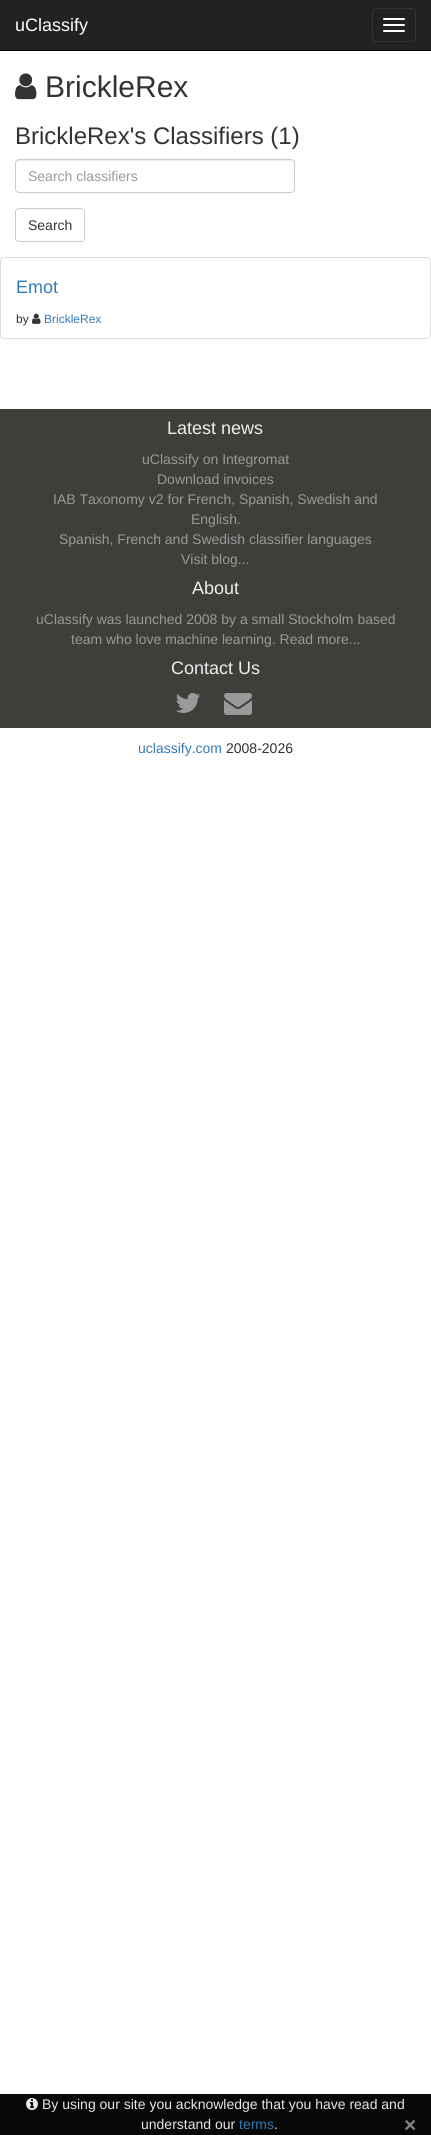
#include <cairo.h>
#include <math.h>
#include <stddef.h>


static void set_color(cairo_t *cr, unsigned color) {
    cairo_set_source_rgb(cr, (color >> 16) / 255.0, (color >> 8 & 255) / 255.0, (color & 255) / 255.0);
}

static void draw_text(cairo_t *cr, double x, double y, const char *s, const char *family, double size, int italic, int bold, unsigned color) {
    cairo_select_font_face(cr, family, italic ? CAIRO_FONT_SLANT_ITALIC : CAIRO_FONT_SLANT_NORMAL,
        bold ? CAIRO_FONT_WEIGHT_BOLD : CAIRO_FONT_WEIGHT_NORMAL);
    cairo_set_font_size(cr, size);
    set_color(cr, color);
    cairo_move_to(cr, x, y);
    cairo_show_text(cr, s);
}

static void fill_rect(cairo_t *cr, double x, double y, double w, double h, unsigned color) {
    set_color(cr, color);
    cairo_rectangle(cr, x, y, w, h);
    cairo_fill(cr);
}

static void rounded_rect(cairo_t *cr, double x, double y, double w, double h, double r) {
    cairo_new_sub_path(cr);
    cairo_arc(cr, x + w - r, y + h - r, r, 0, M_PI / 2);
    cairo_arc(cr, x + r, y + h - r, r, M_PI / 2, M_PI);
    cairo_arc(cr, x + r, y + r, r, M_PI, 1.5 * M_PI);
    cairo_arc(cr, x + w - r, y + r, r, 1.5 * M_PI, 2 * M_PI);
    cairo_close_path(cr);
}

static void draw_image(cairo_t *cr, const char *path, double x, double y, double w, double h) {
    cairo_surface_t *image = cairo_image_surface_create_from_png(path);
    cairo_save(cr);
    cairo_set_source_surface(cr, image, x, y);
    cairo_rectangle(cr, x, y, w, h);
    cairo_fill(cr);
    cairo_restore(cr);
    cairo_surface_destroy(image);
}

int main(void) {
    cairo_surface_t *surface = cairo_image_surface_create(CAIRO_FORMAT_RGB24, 431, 2135);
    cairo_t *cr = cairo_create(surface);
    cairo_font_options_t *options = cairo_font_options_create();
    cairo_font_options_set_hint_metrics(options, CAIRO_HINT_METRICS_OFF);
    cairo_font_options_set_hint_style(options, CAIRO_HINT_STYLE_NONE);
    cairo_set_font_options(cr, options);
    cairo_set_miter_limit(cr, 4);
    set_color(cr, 0xFFFFFF);
    cairo_paint(cr);
    fill_rect(cr, 0, 0, 431, 50, 0x222222);
    fill_rect(cr, 0, 50, 431, 1, 0x080808);
    draw_text(cr, 15, 31, "uClassify", "Liberation Sans", 18, 0, 0, 0xFFFFFF);
    rounded_rect(cr, 372.5, 8.5, 43, 33, 3.5);
    set_color(cr, 0x333333);
    cairo_set_line_width(cr, 1);
    cairo_stroke(cr);
    set_color(cr, 0xFFFFFF);
    rounded_rect(cr, 383, 18, 22, 2, 1);
    cairo_fill(cr);
    rounded_rect(cr, 383, 24, 22, 2, 1);
    cairo_fill(cr);
    rounded_rect(cr, 383, 30, 22, 2, 1);
    cairo_fill(cr);
    draw_image(cr, "assets/img1.png", 15, 73, 22, 27);
    draw_text(cr, 45, 97, "BrickleRex", "Liberation Sans", 30, 0, 0, 0x333333);
    draw_text(cr, 15, 144, "BrickleRex's Classifiers (1)", "Liberation Sans", 24, 0, 0, 0x333333);
    set_color(cr, 0xECECEC);
    cairo_new_path(cr);
    cairo_move_to(cr, 19, 161);
    cairo_line_to(cr, 291, 161);
    cairo_curve_to(cr, 293, 161, 294, 162, 294, 164);
    cairo_line_to(cr, 294, 163);
    cairo_curve_to(cr, 294, 161, 293, 160, 291, 160);
    cairo_line_to(cr, 19, 160);
    cairo_curve_to(cr, 17, 160, 16, 161, 16, 163);
    cairo_line_to(cr, 16, 164);
    cairo_curve_to(cr, 16, 162, 17, 161, 19, 161);
    cairo_close_path(cr);
    cairo_fill(cr);
    rounded_rect(cr, 15.5, 159.5, 279, 33, 3.5);
    set_color(cr, 0xCCCCCC);
    cairo_stroke(cr);
    draw_text(cr, 28, 181, "Search classifiers", "Liberation Sans", 14, 0, 0, 0x999999);
    rounded_rect(cr, 15.5, 208.5, 69, 33, 3.5);
    set_color(cr, 0xCCCCCC);
    cairo_stroke(cr);
    draw_text(cr, 28, 230, "Search", "Liberation Sans", 14, 0, 0, 0x333333);
    rounded_rect(cr, 0.5, 257.5, 430, 81, 3.5);
    set_color(cr, 0xDDDDDD);
    cairo_stroke(cr);
    draw_text(cr, 16, 293, "Emot", "Liberation Sans", 18, 0, 0, 0x337AB7);
    draw_text(cr, 16, 323, "by", "Liberation Sans", 12, 0, 0, 0x333333);
    draw_image(cr, "assets/img2.png", 32, 313, 9, 11);
    draw_text(cr, 44, 323, "BrickleRex", "Liberation Sans", 12, 0, 0, 0x337AB7);
    fill_rect(cr, 0, 409, 431, 319, 0x3E3F3A);
    draw_text(cr, 167, 434, "Latest news", "Liberation Sans", 18, 0, 0, 0xEEEEEE);
    draw_text(cr, 142, 464, "uClassify on Integromat", "Liberation Sans", 14, 0, 0, 0x999999);
    draw_text(cr, 157, 484, "Download invoices", "Liberation Sans", 14, 0, 0, 0x999999);
    draw_text(cr, 53, 504, "IAB Taxonomy v2 for French, Spanish, Swedish and", "Liberation Sans", 14, 0, 0, 0x999999);
    draw_text(cr, 191, 524, "English.", "Liberation Sans", 14, 0, 0, 0x999999);
    draw_text(cr, 59, 544, "Spanish, French and Swedish classifier languages", "Liberation Sans", 14, 0, 0, 0x999999);
    draw_text(cr, 181, 564, "Visit blog...", "Liberation Sans", 14, 0, 0, 0x999999);
    draw_text(cr, 192, 594, "About", "Liberation Sans", 18, 0, 0, 0xEEEEEE);
    draw_text(cr, 36, 624, "uClassify was launched 2008 by a small Stockholm based", "Liberation Sans", 14, 0, 0, 0x999999);
    draw_text(cr, 71, 644, "team who love machine learning. Read more...", "Liberation Sans", 14, 0, 0, 0x999999);
    draw_text(cr, 171, 674, "Contact Us", "Liberation Sans", 18, 0, 0, 0xEEEEEE);
    draw_image(cr, "assets/img3.png", 176, 693, 25, 20);
    draw_image(cr, "assets/img4.png", 224, 693, 28, 22);
    draw_text(cr, 138, 753, "uclassify.com", "Liberation Sans", 14, 0, 0, 0x337AB7);
    draw_text(cr, 226, 753, "2008-2026", "Liberation Sans", 14, 0, 0, 0x333333);
    fill_rect(cr, 0, 2094, 431, 41, 0x080808);
    draw_image(cr, "assets/img5.png", 26, 2098, 12, 12);
    draw_text(cr, 42, 2109, "By using our site you acknowledge that you have read and", "Liberation Sans", 14, 0, 0, 0xE7E7E7);
    draw_text(cr, 141, 2129, "understand our", "Liberation Sans", 14, 0, 0, 0xE7E7E7);
    draw_text(cr, 239, 2129, "terms", "Liberation Sans", 14, 0, 0, 0x337AB7);
    draw_text(cr, 274, 2129, ".", "Liberation Sans", 14, 0, 0, 0xE7E7E7);
    draw_text(cr, 404, 2132, "×", "Liberation Sans", 21, 0, 1, 0x848484);
    cairo_surface_write_to_png(surface, "output.png");
    cairo_font_options_destroy(options);
    cairo_destroy(cr);
    cairo_surface_destroy(surface);
    return 0;
}
